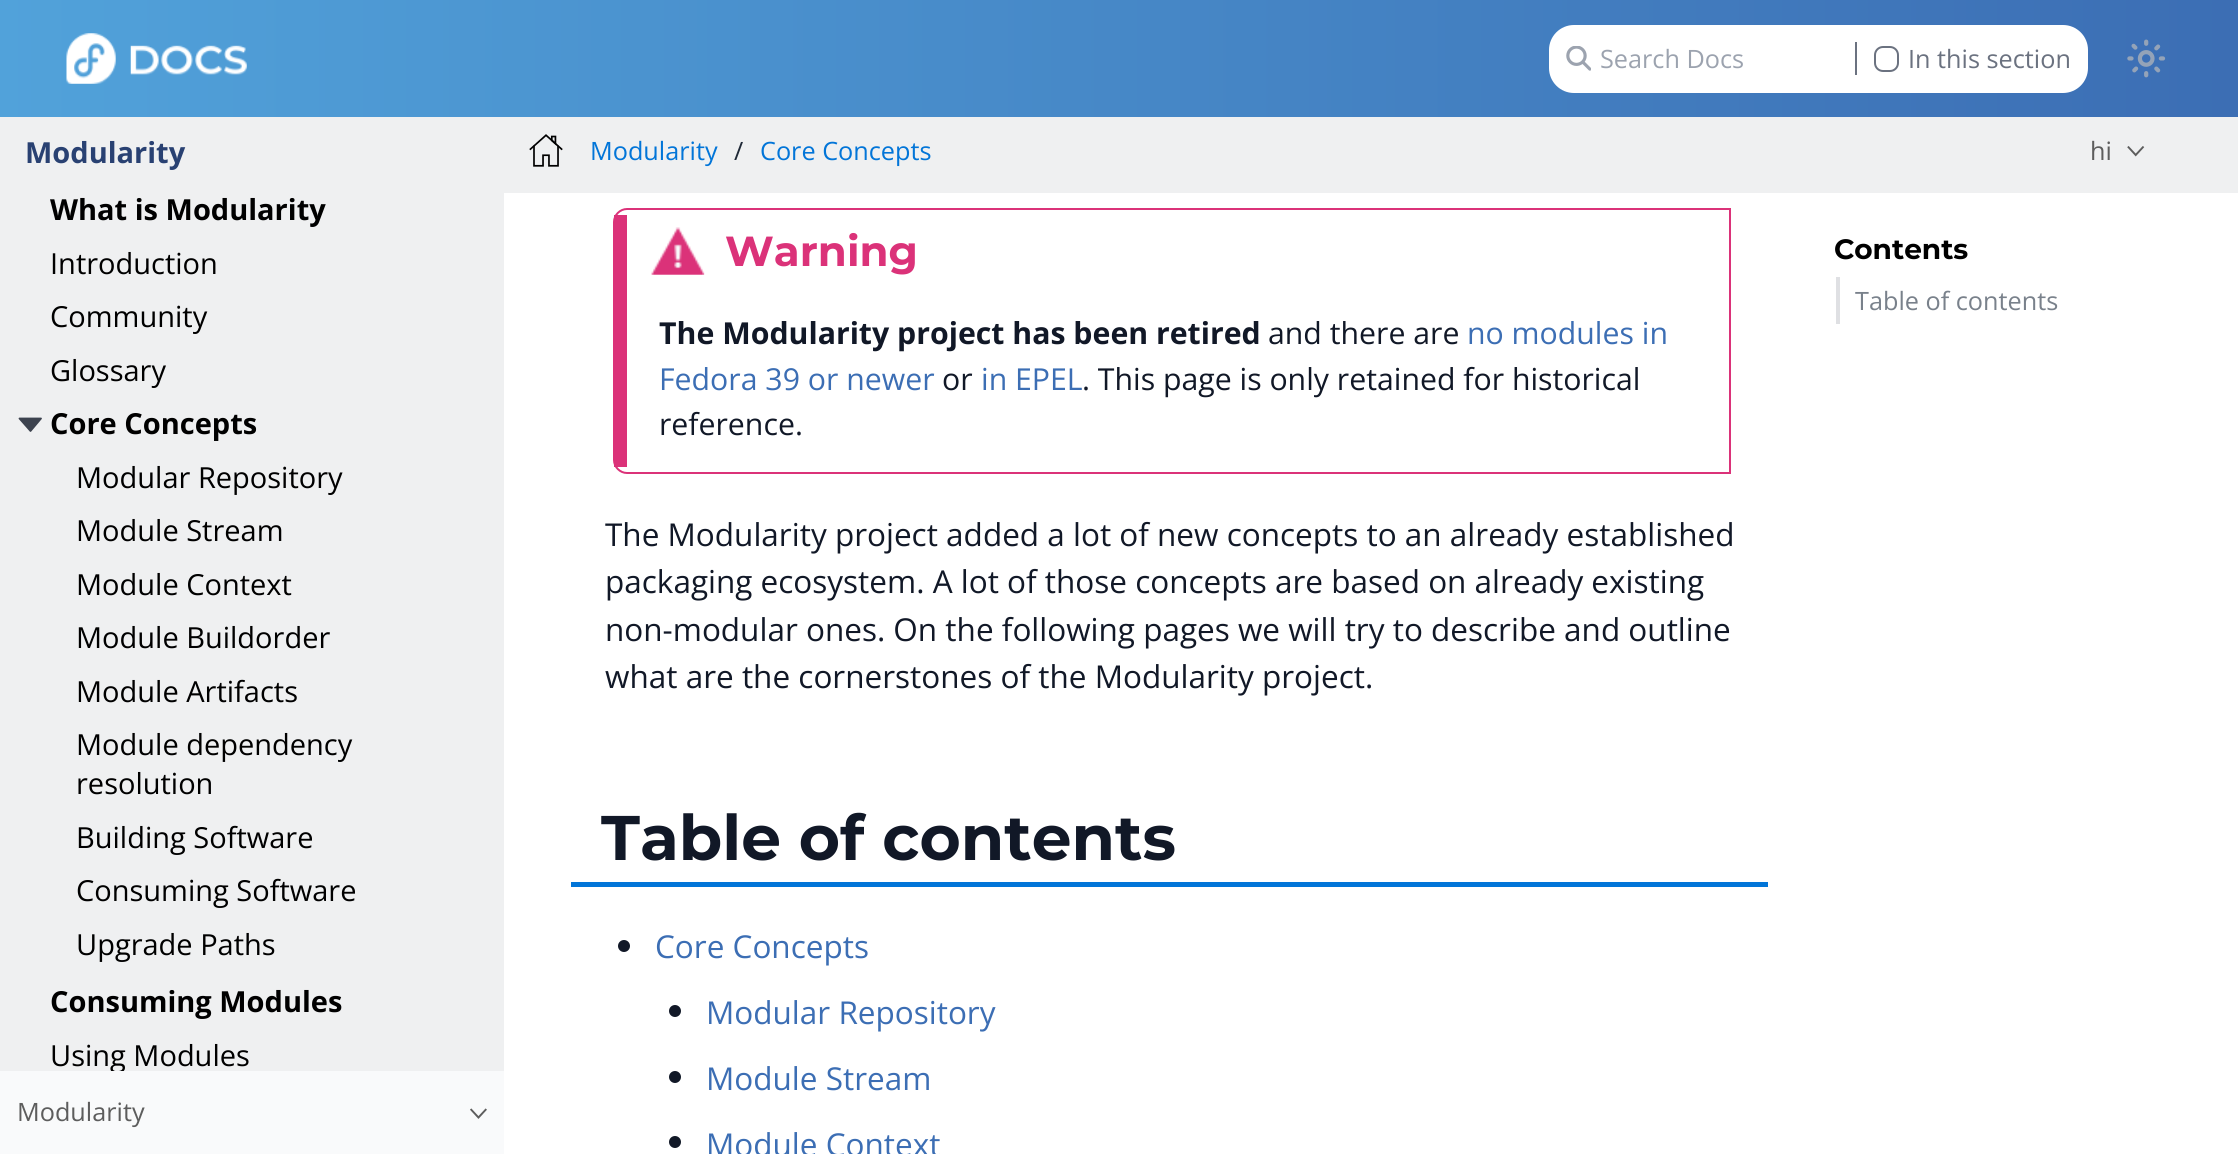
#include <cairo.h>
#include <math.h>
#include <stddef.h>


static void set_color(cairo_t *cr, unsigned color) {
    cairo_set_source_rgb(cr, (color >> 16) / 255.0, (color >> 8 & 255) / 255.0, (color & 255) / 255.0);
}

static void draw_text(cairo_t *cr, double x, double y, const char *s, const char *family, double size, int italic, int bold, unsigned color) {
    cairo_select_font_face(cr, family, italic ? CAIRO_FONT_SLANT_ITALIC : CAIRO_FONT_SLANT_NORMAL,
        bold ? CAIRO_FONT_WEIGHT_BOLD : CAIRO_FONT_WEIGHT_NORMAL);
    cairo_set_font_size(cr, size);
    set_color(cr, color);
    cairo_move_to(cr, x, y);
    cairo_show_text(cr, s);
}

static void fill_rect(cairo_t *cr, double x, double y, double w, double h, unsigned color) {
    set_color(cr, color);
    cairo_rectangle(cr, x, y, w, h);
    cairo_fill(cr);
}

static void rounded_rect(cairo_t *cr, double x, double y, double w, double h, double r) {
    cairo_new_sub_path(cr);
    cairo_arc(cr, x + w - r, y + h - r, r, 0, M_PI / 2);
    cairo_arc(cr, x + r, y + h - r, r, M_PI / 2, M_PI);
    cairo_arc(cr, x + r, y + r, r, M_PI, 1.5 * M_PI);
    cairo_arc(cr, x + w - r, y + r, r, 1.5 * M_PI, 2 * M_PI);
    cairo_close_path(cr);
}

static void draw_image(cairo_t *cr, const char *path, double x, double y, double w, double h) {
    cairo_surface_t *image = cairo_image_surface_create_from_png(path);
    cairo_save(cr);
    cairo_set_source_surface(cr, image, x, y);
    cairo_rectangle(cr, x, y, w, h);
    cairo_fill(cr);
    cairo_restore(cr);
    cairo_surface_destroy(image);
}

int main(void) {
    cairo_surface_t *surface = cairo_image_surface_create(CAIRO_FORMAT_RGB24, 2238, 1154);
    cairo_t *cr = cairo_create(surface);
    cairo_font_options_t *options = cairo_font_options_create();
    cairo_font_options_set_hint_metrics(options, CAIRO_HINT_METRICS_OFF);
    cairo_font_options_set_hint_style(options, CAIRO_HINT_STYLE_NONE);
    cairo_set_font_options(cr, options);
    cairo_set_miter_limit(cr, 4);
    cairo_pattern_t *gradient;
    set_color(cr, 0xFFFFFF);
    cairo_paint(cr);
    gradient = cairo_pattern_create_linear(2238, 59, 0, 59);
    cairo_pattern_add_color_stop_rgba(gradient, 0, 0.235, 0.431, 0.706, 1);
    cairo_pattern_add_color_stop_rgba(gradient, 1, 0.318, 0.635, 0.855, 1);
    cairo_set_source(cr, gradient);
    cairo_pattern_destroy(gradient);
    cairo_rectangle(cr, 0, 0, 2238, 117);
    cairo_fill(cr);
    draw_image(cr, "assets/img1.png", 66, 33, 181, 51);
    set_color(cr, 0xFFFFFF);
    rounded_rect(cr, 1549, 25, 539, 68, 25);
    cairo_fill(cr);
    draw_image(cr, "assets/img2.png", 1566, 46, 25, 25);
    draw_text(cr, 1600, 68, "Search Docs", "Open Sans", 25.25, 0, 0, 0x9CA3AF);
    fill_rect(cr, 1855, 42, 2, 33, 0x6B7280);
    rounded_rect(cr, 1875, 47, 23, 24, 8);
    cairo_stroke(cr);
    draw_text(cr, 1908, 68, "In this section", "Open Sans", 25.25, 0, 0, 0x6B7280);
    draw_image(cr, "assets/img3.png", 2127, 39, 39, 39);
    fill_rect(cr, 0, 117, 504, 954, 0xEFF0F1);
    draw_text(cr, 25, 163, "Modularity", "Open Sans", 29, 0, 1, 0x294172);
    draw_text(cr, 50, 220, "What is Modularity", "Open Sans", 29, 0, 1, 0x000000);
    draw_text(cr, 50, 274, "Introduction", "Open Sans", 29, 0, 0, 0x000000);
    draw_text(cr, 50, 327, "Community", "Open Sans", 29, 0, 0, 0x000000);
    draw_text(cr, 50, 381, "Glossary", "Open Sans", 29, 0, 0, 0x000000);
    set_color(cr, 0x3D434F);
    cairo_new_path(cr);
    cairo_move_to(cr, 41, 418.5);
    cairo_line_to(cr, 30.5, 431);
    cairo_line_to(cr, 19.5, 418.5);
    cairo_close_path(cr);
    cairo_fill_preserve(cr);
    cairo_set_line_width(cr, 1.8);
    cairo_set_line_cap(cr, CAIRO_LINE_CAP_ROUND);
    cairo_set_line_join(cr, CAIRO_LINE_JOIN_ROUND);
    cairo_stroke(cr);
    draw_text(cr, 50, 434, "Core Concepts", "Open Sans", 29, 0, 1, 0x000000);
    draw_text(cr, 76, 488, "Modular Repository", "Open Sans", 29, 0, 0, 0x000000);
    draw_text(cr, 76, 541, "Module Stream", "Open Sans", 29, 0, 0, 0x000000);
    draw_text(cr, 76, 595, "Module Context", "Open Sans", 29, 0, 0, 0x000000);
    draw_text(cr, 76, 648, "Module Buildorder", "Open Sans", 29, 0, 0, 0x000000);
    draw_text(cr, 76, 702, "Module Artifacts", "Open Sans", 29, 0, 0, 0x000000);
    draw_text(cr, 76, 755, "Module dependency", "Open Sans", 29, 0, 0, 0x000000);
    draw_text(cr, 76, 794, "resolution", "Open Sans", 29, 0, 0, 0x000000);
    draw_text(cr, 76, 848, "Building Software", "Open Sans", 29, 0, 0, 0x000000);
    draw_text(cr, 76, 901, "Consuming Software", "Open Sans", 29, 0, 0, 0x000000);
    draw_text(cr, 76, 955, "Upgrade Paths", "Open Sans", 29, 0, 0, 0x000000);
    draw_text(cr, 50, 1012, "Consuming Modules", "Open Sans", 29, 0, 1, 0x000000);
    draw_text(cr, 50, 1066, "Using Modules", "Open Sans", 29, 0, 0, 0x000000);
    fill_rect(cr, 0, 1071, 504, 83, 0xF9FAFB);
    draw_text(cr, 17, 1121, "Modularity", "Open Sans", 25.25, 0, 0, 0x5D5D5D);
    draw_image(cr, "assets/img4.png", 470, 1108, 17, 11);
    fill_rect(cr, 504, 117, 1734, 76, 0xEFF0F1);
    draw_image(cr, "assets/img5.png", 529, 134, 34, 33);
    draw_text(cr, 590, 160, "Modularity", "Open Sans", 25.25, 0, 0, 0x0275D8);
    draw_text(cr, 734, 160, "/", "Open Sans", 25.25, 0, 0, 0x1F2937);
    draw_text(cr, 760, 160, "Core Concepts", "Open Sans", 25.25, 0, 0, 0x0275D8);
    draw_image(cr, "assets/img6.png", 2127, 146, 18, 11);
    draw_text(cr, 2090, 160, "hi", "Open Sans", 25.25, 0, 0, 0x5D5D5D);
    cairo_new_path(cr);
    cairo_move_to(cr, 627, 209);
    cairo_line_to(cr, 1730, 209);
    cairo_line_to(cr, 1730, 473);
    cairo_line_to(cr, 627, 473);
    cairo_curve_to(cr, 620, 473, 614, 467, 614, 460);
    cairo_line_to(cr, 614, 222);
    cairo_curve_to(cr, 614, 215, 620, 209, 627, 209);
    cairo_close_path(cr);
    set_color(cr, 0xDB3279);
    cairo_set_line_width(cr, 2);
    cairo_set_line_cap(cr, CAIRO_LINE_CAP_BUTT);
    cairo_set_line_join(cr, CAIRO_LINE_JOIN_MITER);
    cairo_stroke(cr);
    draw_image(cr, "assets/img7.png", 651, 227, 54, 48);
    draw_text(cr, 725, 266, "Warning", "Montserrat", 42, 0, 1, 0xDB3279);
    fill_rect(cr, 614, 215, 13, 252, 0xDB3279);
    draw_text(cr, 659, 344, "The Modularity project has been retired", "Open Sans", 30.25, 0, 1, 0x111827);
    draw_text(cr, 1268, 344, "and there are", "Open Sans", 30.25, 0, 0, 0x111827);
    draw_text(cr, 1467, 344, "no modules in", "Open Sans", 30.25, 0, 0, 0x3C6EB4);
    draw_text(cr, 659, 390, "Fedora 39 or newer", "Open Sans", 30.25, 0, 0, 0x3C6EB4);
    draw_text(cr, 942, 390, "or", "Open Sans", 30.25, 0, 0, 0x111827);
    draw_text(cr, 981, 390, "in EPEL", "Open Sans", 30.25, 0, 0, 0x3C6EB4);
    draw_text(cr, 1082, 390, ". This page is only retained for historical", "Open Sans", 30.25, 0, 0, 0x111827);
    draw_text(cr, 659, 435, "reference.", "Open Sans", 30.25, 0, 0, 0x111827);
    draw_text(cr, 605, 546, "The Modularity project added a lot of new concepts to an already established", "Open Sans", 31.5, 0, 0, 0x111827);
    draw_text(cr, 605, 593, "packaging ecosystem. A lot of those concepts are based on already existing", "Open Sans", 31.5, 0, 0, 0x111827);
    draw_text(cr, 605, 641, "non-modular ones. On the following pages we will try to describe and outline", "Open Sans", 31.5, 0, 0, 0x111827);
    draw_text(cr, 605, 688, "what are the cornerstones of the Modularity project.", "Open Sans", 31.5, 0, 0, 0x111827);
    fill_rect(cr, 571, 882, 1197, 5, 0x0275D8);
    draw_text(cr, 601, 860, "Table of contents", "Montserrat", 63, 0, 1, 0x111827);
    cairo_new_path(cr);
    cairo_arc(cr, 624, 946, 6, 0, 2 * M_PI);
    cairo_fill(cr);
    draw_text(cr, 655, 958, "Core Concepts", "Open Sans", 31.5, 0, 0, 0x3C6EB4);
    set_color(cr, 0x111827);
    cairo_new_path(cr);
    cairo_arc(cr, 675, 1011, 6, 0, 2 * M_PI);
    cairo_fill(cr);
    draw_text(cr, 706, 1024, "Modular Repository", "Open Sans", 31.5, 0, 0, 0x3C6EB4);
    set_color(cr, 0x111827);
    cairo_new_path(cr);
    cairo_arc(cr, 675, 1077, 6, 0, 2 * M_PI);
    cairo_fill(cr);
    draw_text(cr, 706, 1090, "Module Stream", "Open Sans", 31.5, 0, 0, 0x3C6EB4);
    set_color(cr, 0x111827);
    cairo_new_path(cr);
    cairo_arc(cr, 675, 1142, 6, 0, 2 * M_PI);
    cairo_fill(cr);
    draw_text(cr, 706, 1156, "Module Context", "Open Sans", 31.5, 0, 0, 0x3C6EB4);
    draw_text(cr, 1834, 259, "Contents", "Montserrat", 28, 0, 1, 0x000000);
    fill_rect(cr, 1836, 277, 4, 47, 0xDFE0E3);
    draw_text(cr, 1855, 310, "Table of contents", "Open Sans", 25.25, 0, 0, 0x79818B);
    cairo_surface_write_to_png(surface, "output.png");
    cairo_font_options_destroy(options);
    cairo_destroy(cr);
    cairo_surface_destroy(surface);
    return 0;
}
